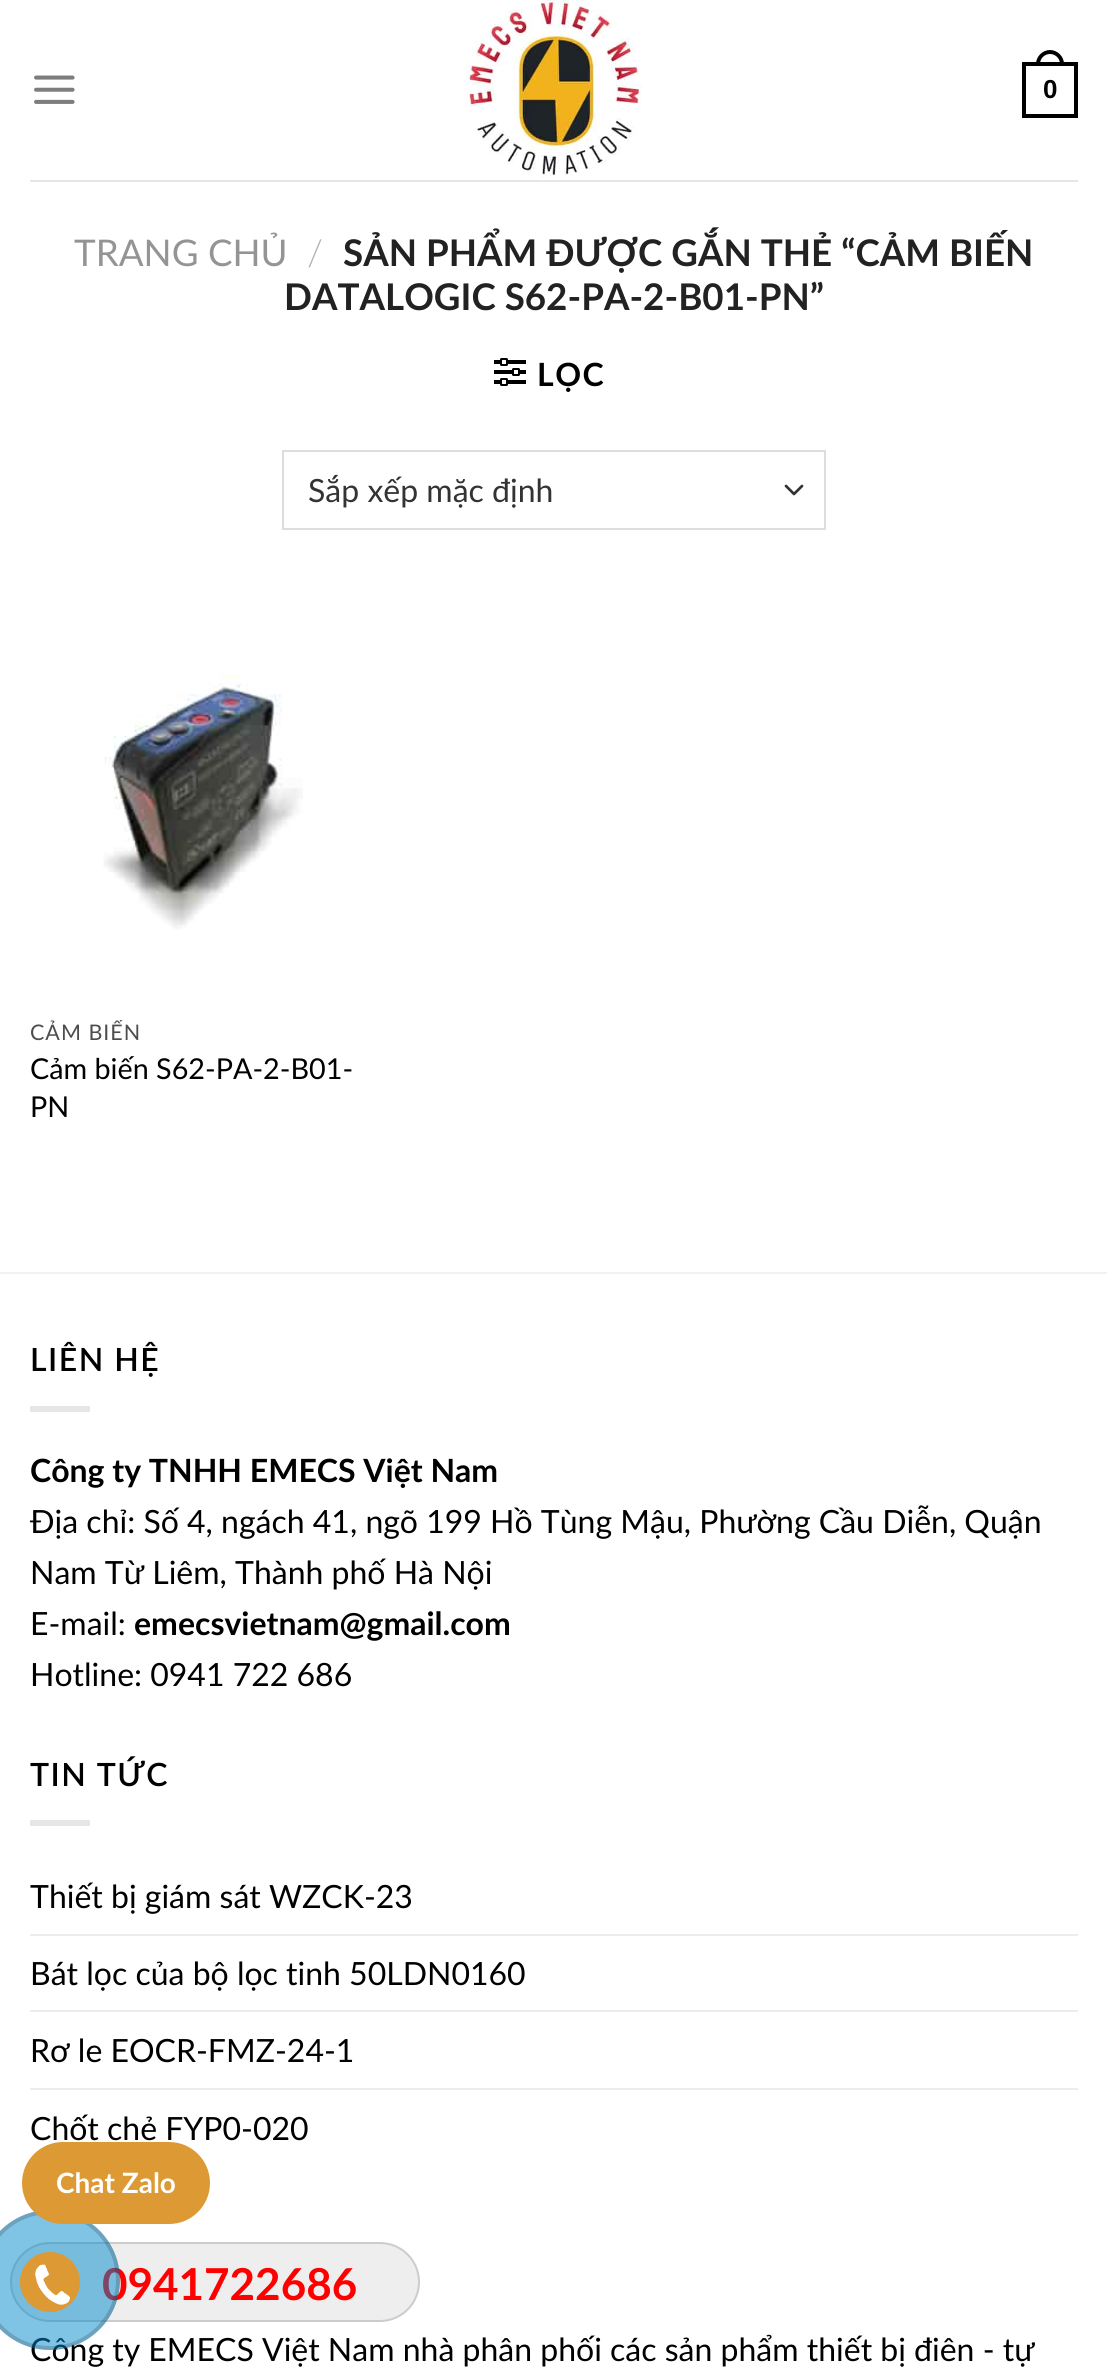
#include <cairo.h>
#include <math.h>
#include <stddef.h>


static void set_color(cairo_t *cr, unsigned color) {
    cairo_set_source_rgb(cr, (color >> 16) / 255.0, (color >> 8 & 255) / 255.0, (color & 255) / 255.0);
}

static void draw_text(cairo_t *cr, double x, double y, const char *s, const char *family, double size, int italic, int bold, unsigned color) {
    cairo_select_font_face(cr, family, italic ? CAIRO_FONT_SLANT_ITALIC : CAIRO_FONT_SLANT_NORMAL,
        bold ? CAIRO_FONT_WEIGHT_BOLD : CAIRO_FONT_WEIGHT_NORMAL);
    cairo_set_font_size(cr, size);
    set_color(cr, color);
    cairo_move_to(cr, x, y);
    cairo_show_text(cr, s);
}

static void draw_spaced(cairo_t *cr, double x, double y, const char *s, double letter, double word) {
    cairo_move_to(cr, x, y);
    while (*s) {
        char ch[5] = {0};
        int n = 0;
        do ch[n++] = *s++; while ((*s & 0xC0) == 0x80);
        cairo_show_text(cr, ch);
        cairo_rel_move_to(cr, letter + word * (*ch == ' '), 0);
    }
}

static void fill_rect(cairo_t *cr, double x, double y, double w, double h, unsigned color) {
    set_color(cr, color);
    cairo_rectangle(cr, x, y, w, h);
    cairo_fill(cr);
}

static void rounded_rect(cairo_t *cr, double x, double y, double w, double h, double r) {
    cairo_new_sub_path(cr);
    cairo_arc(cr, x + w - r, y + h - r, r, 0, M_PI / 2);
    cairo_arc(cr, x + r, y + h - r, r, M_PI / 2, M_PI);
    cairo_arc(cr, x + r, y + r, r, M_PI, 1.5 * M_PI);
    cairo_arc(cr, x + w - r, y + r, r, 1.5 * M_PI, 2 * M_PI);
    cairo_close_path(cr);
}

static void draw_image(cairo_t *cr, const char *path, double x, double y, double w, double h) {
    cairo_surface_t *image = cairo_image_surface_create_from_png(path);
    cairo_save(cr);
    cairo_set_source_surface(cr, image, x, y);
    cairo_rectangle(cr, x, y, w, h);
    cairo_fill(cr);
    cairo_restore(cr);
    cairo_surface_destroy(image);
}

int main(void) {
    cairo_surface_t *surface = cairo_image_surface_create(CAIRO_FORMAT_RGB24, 1107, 2372);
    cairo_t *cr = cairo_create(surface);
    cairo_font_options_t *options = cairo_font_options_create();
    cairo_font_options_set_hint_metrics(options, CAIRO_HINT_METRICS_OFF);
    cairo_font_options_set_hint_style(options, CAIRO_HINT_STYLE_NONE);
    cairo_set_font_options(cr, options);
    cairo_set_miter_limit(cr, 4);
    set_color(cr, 0xFFFFFF);
    cairo_paint(cr);
    draw_image(cr, "assets/img1.png", 34, 75, 41, 29);
    draw_image(cr, "assets/img2.png", 466, 0, 176, 178);
    cairo_rectangle(cr, 1024, 64, 52, 52);
    set_color(cr, 0x000000);
    cairo_set_line_width(cr, 4);
    cairo_stroke(cr);
    cairo_set_fill_rule(cr, CAIRO_FILL_RULE_EVEN_ODD);
    cairo_new_path(cr);
    cairo_move_to(cr, 1050, 50);
    cairo_curve_to(cr, 1057.5, 50, 1064, 56.5, 1064, 64);
    cairo_line_to(cr, 1064, 66);
    cairo_line_to(cr, 1036, 66);
    cairo_line_to(cr, 1036, 64);
    cairo_curve_to(cr, 1036, 56.5, 1042.5, 50, 1050, 50);
    cairo_close_path(cr);
    cairo_move_to(cr, 1050, 54);
    cairo_curve_to(cr, 1055.5, 54, 1060, 58.5, 1060, 64);
    cairo_line_to(cr, 1060, 66);
    cairo_line_to(cr, 1040, 66);
    cairo_line_to(cr, 1040, 64);
    cairo_curve_to(cr, 1040, 58.5, 1044.5, 54, 1050, 54);
    cairo_close_path(cr);
    cairo_fill(cr);
    draw_text(cr, 1043, 98, "0", "Liberation Sans", 26, 0, 1, 0x000000);
    fill_rect(cr, 30, 180, 1048, 2, 0xE6E6E6);
    draw_text(cr, 74, 266, "TRANG CHỦ", "Lato", 36.75, 0, 0, 0x949494);
    draw_text(cr, 307, 266, "/", "Lato Light", 36.75, 0, 0, 0xB2B2B2);
    draw_text(cr, 343, 266, "SẢN PHẨM ĐƯỢC GẮN THẺ “CẢM BIẾN", "Lato", 36.75, 0, 1, 0x222222);
    draw_text(cr, 284, 310, "DATALOGIC S62-PA-2-B01-PN”", "Lato", 36.75, 0, 1, 0x222222);
    draw_image(cr, "assets/img3.png", 494, 358, 32, 28);
    cairo_set_font_size(cr, 32);
    set_color(cr, 0x000000);
    draw_spaced(cr, 537, 386, "LỌC", 1.5, 0);
    cairo_new_path(cr);
    cairo_move_to(cr, 786, 486);
    cairo_line_to(cr, 794, 494);
    cairo_line_to(cr, 802, 486);
    set_color(cr, 0x333333);
    cairo_set_line_width(cr, 2.7);
    cairo_set_line_cap(cr, CAIRO_LINE_CAP_ROUND);
    cairo_set_line_join(cr, CAIRO_LINE_JOIN_ROUND);
    cairo_stroke(cr);
    cairo_rectangle(cr, 283, 451, 542, 78);
    set_color(cr, 0xDDDDDD);
    cairo_set_line_width(cr, 2);
    cairo_set_line_cap(cr, CAIRO_LINE_CAP_BUTT);
    cairo_set_line_join(cr, CAIRO_LINE_JOIN_MITER);
    cairo_stroke(cr);
    draw_text(cr, 308, 502, "Sắp xếp mặc định", "Lato", 32, 0, 0, 0x333333);
    draw_image(cr, "assets/img4.png", 103, 675, 200, 255);
    cairo_save(cr);
    cairo_set_fill_rule(cr, CAIRO_FILL_RULE_WINDING);
    cairo_rectangle(cr, 30, 1020, 324, 26);
    cairo_clip(cr);
    cairo_set_font_size(cr, 21.5);
    set_color(cr, 0x4D4D4D);
    draw_spaced(cr, 30, 1040, "CẢM BIẾN", 1, 0);
    cairo_restore(cr);
    draw_text(cr, 30, 1079, "Cảm biến S62-PA-2-B01-", "Lato", 28.75, 0, 0, 0x000000);
    draw_text(cr, 30, 1117, "PN", "Lato", 28.75, 0, 0, 0x000000);
    fill_rect(cr, 0, 1272, 1107, 2, 0xF2F2F2);
    cairo_select_font_face(cr, "Lato SemiBold", CAIRO_FONT_SLANT_NORMAL, CAIRO_FONT_WEIGHT_NORMAL);
    cairo_set_font_size(cr, 32);
    set_color(cr, 0x000000);
    draw_spaced(cr, 30, 1371, "LIÊN HỆ", 1.5, 0);
    fill_rect(cr, 30, 1406, 60, 6, 0xE6E6E6);
    draw_text(cr, 30, 1482, "Công ty TNHH EMECS Việt Nam", "Lato", 32, 0, 1, 0x000000);
    draw_text(cr, 30, 1533, "Địa chỉ: Số 4, ngách 41, ngõ 199 Hồ Tùng Mậu, Phường Cầu Diễn, Quận", "Lato", 32, 0, 0, 0x000000);
    draw_text(cr, 30, 1584, "Nam Từ Liêm, Thành phố Hà Nội", "Lato", 32, 0, 0, 0x000000);
    draw_text(cr, 30, 1635, "E-mail:", "Lato", 32, 0, 0, 0x000000);
    draw_text(cr, 134, 1635, "emecsvietnam@gmail.com", "Lato", 32, 0, 1, 0x000000);
    draw_text(cr, 30, 1686, "Hotline: 0941 722 686", "Lato", 32, 0, 0, 0x000000);
    cairo_select_font_face(cr, "Lato SemiBold", CAIRO_FONT_SLANT_NORMAL, CAIRO_FONT_WEIGHT_NORMAL);
    draw_spaced(cr, 30, 1786, "TIN TỨC", 1.5, 0);
    fill_rect(cr, 30, 1820, 60, 6, 0xE6E6E6);
    draw_text(cr, 30, 1908, "Thiết bị giám sát WZCK-23", "Lato", 32, 0, 0, 0x000000);
    fill_rect(cr, 30, 1934, 1048, 2, 0xECECEC);
    draw_text(cr, 30, 1985, "Bát lọc của bộ lọc tinh 50LDN0160", "Lato", 32, 0, 0, 0x000000);
    fill_rect(cr, 30, 2010, 1048, 2, 0xECECEC);
    draw_text(cr, 30, 2062, "Rơ le EOCR-FMZ-24-1", "Lato", 32, 0, 0, 0x000000);
    fill_rect(cr, 30, 2088, 1048, 2, 0xECECEC);
    draw_text(cr, 30, 2140, "Chốt chẻ FYP0-020", "Lato", 32, 0, 0, 0x000000);
    draw_text(cr, 30, 2361, "Công ty EMECS Việt Nam nhà phân phối các sản phẩm thiết bị điên - tự", "Lato", 32, 0, 0, 0x000000);
    set_color(cr, 0xEEEEEE);
    rounded_rect(cr, 11, 2243, 408, 78, 39);
    cairo_fill_preserve(cr);
    set_color(cr, 0xCCCCCC);
    cairo_stroke(cr);
    draw_text(cr, 102, 2300, "0941722686", "Lato", 44, 0, 1, 0xFF0000);
    cairo_set_source_rgba(cr, 0, 0.533, 0.8, 0.5);
    cairo_new_path(cr);
    cairo_arc(cr, 50, 2280, 70, 0, 2 * M_PI);
    cairo_fill(cr);
    cairo_arc(cr, 50, 2280, 68, 0, 2 * M_PI);
    cairo_set_source_rgba(cr, 0.118, 0.118, 0.118, 0.2);
    cairo_set_line_width(cr, 4);
    cairo_stroke(cr);
    set_color(cr, 0xDD9933);
    rounded_rect(cr, 22, 2142, 188, 82, 41);
    cairo_fill(cr);
    draw_text(cr, 56, 2193, "Chat Zalo", "Lato", 28, 0, 1, 0xFFFFFF);
    set_color(cr, 0xDD9933);
    cairo_new_path(cr);
    cairo_arc(cr, 50, 2282, 30, 0, 2 * M_PI);
    cairo_fill(cr);
    draw_image(cr, "assets/img5.png", 35, 2264, 35, 41);
    cairo_surface_write_to_png(surface, "output.png");
    cairo_font_options_destroy(options);
    cairo_destroy(cr);
    cairo_surface_destroy(surface);
    return 0;
}
